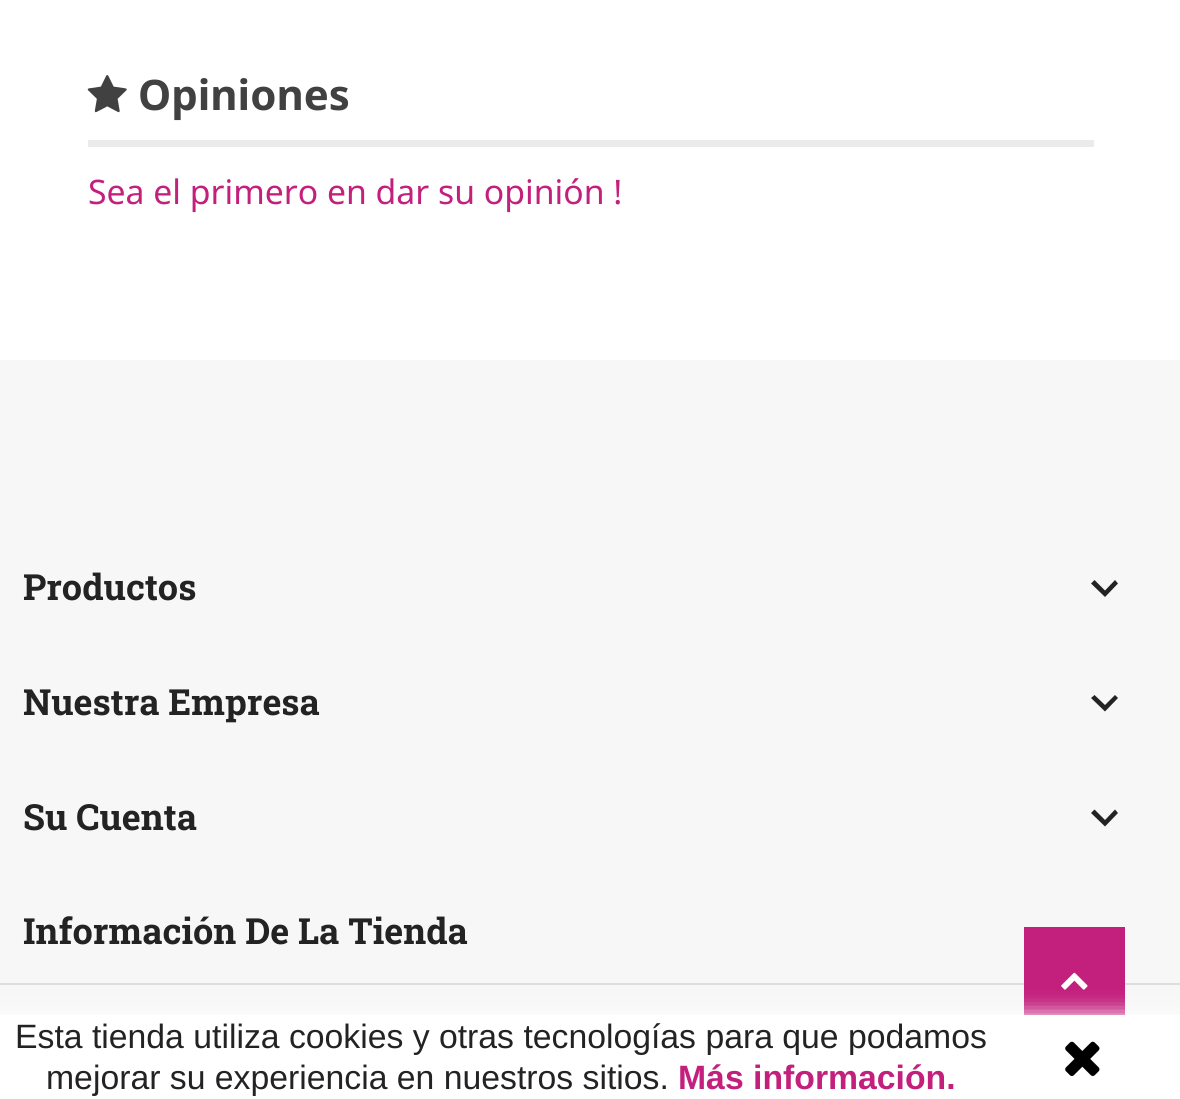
#include <cairo.h>
#include <math.h>
#include <stddef.h>


static void set_color(cairo_t *cr, unsigned color) {
    cairo_set_source_rgb(cr, (color >> 16) / 255.0, (color >> 8 & 255) / 255.0, (color & 255) / 255.0);
}

static void draw_text(cairo_t *cr, double x, double y, const char *s, const char *family, double size, int italic, int bold, unsigned color) {
    cairo_select_font_face(cr, family, italic ? CAIRO_FONT_SLANT_ITALIC : CAIRO_FONT_SLANT_NORMAL,
        bold ? CAIRO_FONT_WEIGHT_BOLD : CAIRO_FONT_WEIGHT_NORMAL);
    cairo_set_font_size(cr, size);
    set_color(cr, color);
    cairo_move_to(cr, x, y);
    cairo_show_text(cr, s);
}

static void fill_rect(cairo_t *cr, double x, double y, double w, double h, unsigned color) {
    set_color(cr, color);
    cairo_rectangle(cr, x, y, w, h);
    cairo_fill(cr);
}

static void rounded_rect(cairo_t *cr, double x, double y, double w, double h, double r) {
    cairo_new_sub_path(cr);
    cairo_arc(cr, x + w - r, y + h - r, r, 0, M_PI / 2);
    cairo_arc(cr, x + r, y + h - r, r, M_PI / 2, M_PI);
    cairo_arc(cr, x + r, y + r, r, M_PI, 1.5 * M_PI);
    cairo_arc(cr, x + w - r, y + r, r, 1.5 * M_PI, 2 * M_PI);
    cairo_close_path(cr);
}

static void draw_shadow(cairo_t *cr, double x, double y, double w, double h, double r, double blur, double alpha) {
    cairo_push_group_with_content(cr, CAIRO_CONTENT_ALPHA);
    cairo_set_operator(cr, CAIRO_OPERATOR_SOURCE);
    for (int i = 15; i >= -15 && fmin(w, h) + blur * i / 3 > 0; i -= 2) {
        double e = blur * i / 6;
        cairo_set_source_rgba(cr, 0, 0, 0, alpha * erfc((i - 1) / 8.5) / 2);
        rounded_rect(cr, x - e, y - e, w + 2 * e, h + 2 * e, fmax(0, fmin(r + e + blur * .6, fmin(w, h) / 2 + e)));
        cairo_fill(cr);
    }
    cairo_pattern_t *soft = cairo_pop_group(cr);
    cairo_mask(cr, soft);
    cairo_pattern_destroy(soft);
}

static void draw_image(cairo_t *cr, const char *path, double x, double y, double w, double h) {
    cairo_surface_t *image = cairo_image_surface_create_from_png(path);
    cairo_save(cr);
    cairo_set_source_surface(cr, image, x, y);
    cairo_rectangle(cr, x, y, w, h);
    cairo_fill(cr);
    cairo_restore(cr);
    cairo_surface_destroy(image);
}

int main(void) {
    cairo_surface_t *surface = cairo_image_surface_create(CAIRO_FORMAT_RGB24, 1180, 1099);
    cairo_t *cr = cairo_create(surface);
    cairo_font_options_t *options = cairo_font_options_create();
    cairo_font_options_set_hint_metrics(options, CAIRO_HINT_METRICS_OFF);
    cairo_font_options_set_hint_style(options, CAIRO_HINT_STYLE_NONE);
    cairo_set_font_options(cr, options);
    cairo_set_miter_limit(cr, 4);
    set_color(cr, 0xFFFFFF);
    cairo_paint(cr);
    fill_rect(cr, 88, 140, 1006, 7, 0xEBEBEB);
    draw_image(cr, "assets/img1.png", 87, 75, 40, 38);
    draw_text(cr, 138, 110, "Opiniones", "Noto Sans", 42, 0, 1, 0x414141);
    draw_text(cr, 88, 204, "Sea el primero en dar su opinión !", "Noto Sans", 33.75, 0, 0, 0xC31F7D);
    fill_rect(cr, 0, 360, 1180, 655, 0xF7F7F7);
    fill_rect(cr, 0, 983, 1180, 2, 0xDDDDDD);
    draw_text(cr, 23, 600, "Productos", "Roboto Slab", 36, 0, 1, 0x232323);
    cairo_new_path(cr);
    cairo_move_to(cr, 1094.5, 580);
    cairo_line_to(cr, 1105, 590.5);
    cairo_line_to(cr, 1115, 580);
    cairo_line_to(cr, 1118, 583.5);
    cairo_line_to(cr, 1105, 597);
    cairo_line_to(cr, 1091, 583.5);
    cairo_close_path(cr);
    cairo_fill(cr);
    draw_text(cr, 23, 715, "Nuestra Empresa", "Roboto Slab", 36, 0, 1, 0x232323);
    cairo_new_path(cr);
    cairo_move_to(cr, 1094.5, 695);
    cairo_line_to(cr, 1105, 705);
    cairo_line_to(cr, 1115, 695);
    cairo_line_to(cr, 1118, 698);
    cairo_line_to(cr, 1105, 711.5);
    cairo_line_to(cr, 1091, 698);
    cairo_close_path(cr);
    cairo_fill(cr);
    draw_text(cr, 23, 830, "Su Cuenta", "Roboto Slab", 36, 0, 1, 0x232323);
    cairo_new_path(cr);
    cairo_move_to(cr, 1094.5, 809.5);
    cairo_line_to(cr, 1105, 820);
    cairo_line_to(cr, 1115, 809.5);
    cairo_line_to(cr, 1118, 813);
    cairo_line_to(cr, 1105, 826.5);
    cairo_line_to(cr, 1091, 813);
    cairo_close_path(cr);
    cairo_fill(cr);
    draw_text(cr, 23, 944, "Información De La Tienda", "Roboto Slab", 36, 0, 1, 0x232323);
    fill_rect(cr, 1024, 927, 101, 88, 0xC31F7D);
    draw_image(cr, "assets/img2.png", 1061, 972, 27, 18);
    set_color(cr, 0xFFFFFF);
    draw_shadow(cr, 0, 1015, 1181, 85, 0, 11, 1);
    draw_text(cr, 15, 1048, "Esta tienda utiliza cookies y otras tecnologías para que podamos", "Liberation Sans", 33.75, 0, 0, 0x232323);
    draw_text(cr, 46, 1089, "mejorar su experiencia en nuestros sitios.", "Liberation Sans", 33.75, 0, 0, 0x232323);
    draw_text(cr, 678, 1089, "Más información.", "Liberation Sans", 33.75, 0, 1, 0xC31F7D);
    draw_image(cr, "assets/img3.png", 1065, 1041, 35, 35);
    cairo_surface_write_to_png(surface, "output.png");
    cairo_font_options_destroy(options);
    cairo_destroy(cr);
    cairo_surface_destroy(surface);
    return 0;
}
